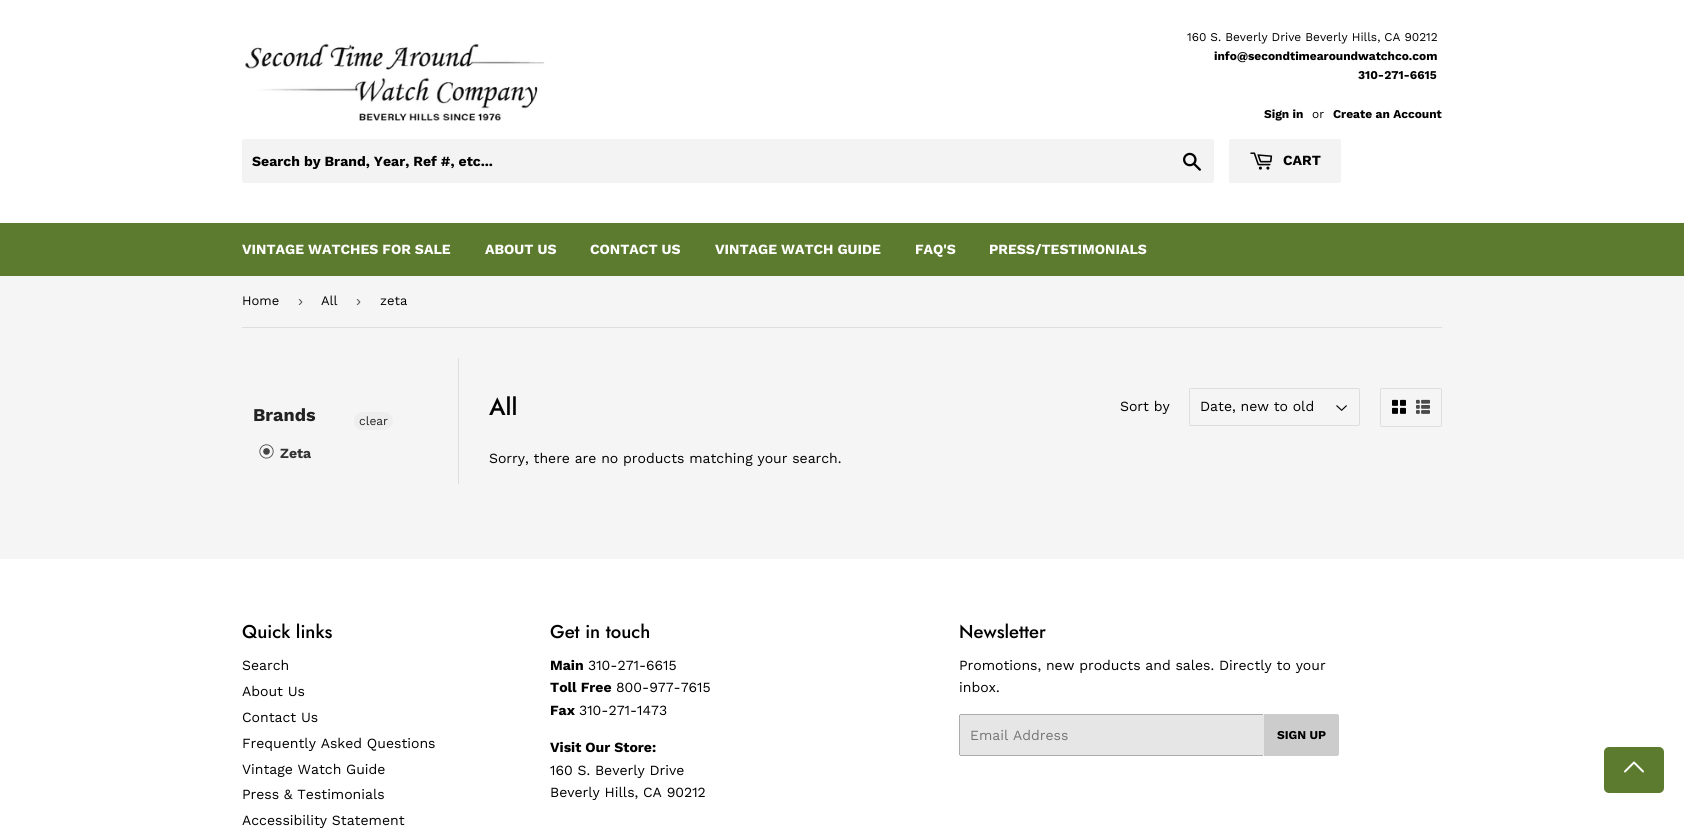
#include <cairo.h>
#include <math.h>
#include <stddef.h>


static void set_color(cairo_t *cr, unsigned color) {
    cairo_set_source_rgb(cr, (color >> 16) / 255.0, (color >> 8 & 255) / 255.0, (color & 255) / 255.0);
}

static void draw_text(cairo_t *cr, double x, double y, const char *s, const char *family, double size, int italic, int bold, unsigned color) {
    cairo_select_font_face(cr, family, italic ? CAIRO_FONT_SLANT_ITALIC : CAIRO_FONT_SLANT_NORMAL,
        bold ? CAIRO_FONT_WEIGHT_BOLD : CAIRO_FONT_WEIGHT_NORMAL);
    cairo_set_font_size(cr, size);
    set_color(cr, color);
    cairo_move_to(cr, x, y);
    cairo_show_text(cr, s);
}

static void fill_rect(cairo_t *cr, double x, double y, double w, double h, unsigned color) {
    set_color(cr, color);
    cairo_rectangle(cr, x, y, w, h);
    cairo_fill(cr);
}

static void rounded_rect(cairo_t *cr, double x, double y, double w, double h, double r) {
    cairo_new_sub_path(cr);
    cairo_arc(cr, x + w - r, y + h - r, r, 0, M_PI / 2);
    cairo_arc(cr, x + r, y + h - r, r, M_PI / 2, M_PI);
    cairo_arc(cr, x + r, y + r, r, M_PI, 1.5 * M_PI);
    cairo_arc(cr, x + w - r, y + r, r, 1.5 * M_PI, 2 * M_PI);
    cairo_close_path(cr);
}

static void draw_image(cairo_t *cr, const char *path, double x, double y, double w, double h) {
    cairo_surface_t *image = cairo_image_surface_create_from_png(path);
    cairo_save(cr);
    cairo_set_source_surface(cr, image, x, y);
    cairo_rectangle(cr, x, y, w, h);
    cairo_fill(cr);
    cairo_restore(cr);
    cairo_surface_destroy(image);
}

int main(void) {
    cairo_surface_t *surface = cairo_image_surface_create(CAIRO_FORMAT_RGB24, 1684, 833);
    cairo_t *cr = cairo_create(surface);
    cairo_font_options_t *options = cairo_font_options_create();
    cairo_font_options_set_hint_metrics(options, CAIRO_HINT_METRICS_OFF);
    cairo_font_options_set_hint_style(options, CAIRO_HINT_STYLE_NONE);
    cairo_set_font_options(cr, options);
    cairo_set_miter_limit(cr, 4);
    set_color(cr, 0xF5F5F5);
    cairo_paint(cr);
    fill_rect(cr, 0, 0, 1684, 223, 0xFFFFFF);
    draw_image(cr, "assets/img1.png", 245, 42, 300, 79);
    draw_text(cr, 1187, 41, "160 S. Beverly Drive Beverly Hills, CA 90212", "Work Sans", 11.9, 0, 0, 0x000000);
    draw_text(cr, 1214, 60, "info@secondtimearoundwatchco.com", "Work Sans", 11.9, 0, 1, 0x000000);
    draw_text(cr, 1358, 79, "310-271-6615", "Work Sans", 11.9, 0, 1, 0x000000);
    draw_text(cr, 1264, 118, "Sign in", "Work Sans", 11.9, 0, 1, 0x000000);
    draw_text(cr, 1312, 118, "or", "Work Sans", 11.9, 0, 0, 0x000000);
    draw_text(cr, 1333, 118, "Create an Account", "Work Sans", 11.9, 0, 1, 0x000000);
    set_color(cr, 0xF3F3F3);
    rounded_rect(cr, 242, 139, 972, 44, 2);
    cairo_fill(cr);
    draw_text(cr, 252, 166, "Search by Brand, Year, Ref #, etc...", "Work Sans", 14, 0, 1, 0x000000);
    draw_image(cr, "assets/img2.png", 1183, 152, 18, 19);
    set_color(cr, 0xF3F3F3);
    rounded_rect(cr, 1229, 139, 112, 44, 2);
    cairo_fill(cr);
    draw_image(cr, "assets/img3.png", 1250, 152, 23, 18);
    draw_text(cr, 1283, 165, "CART", "Work Sans", 14, 0, 1, 0x000000);
    fill_rect(cr, 0, 223, 1684, 53, 0x5C7B2F);
    draw_text(cr, 242, 254, "VINTAGE WATCHES FOR SALE", "Work Sans", 14, 0, 1, 0xFFFFFF);
    draw_text(cr, 485, 254, "ABOUT US", "Work Sans", 14, 0, 1, 0xFFFFFF);
    draw_text(cr, 590, 254, "CONTACT US", "Work Sans", 14, 0, 1, 0xFFFFFF);
    draw_text(cr, 715, 254, "VINTAGE WATCH GUIDE", "Work Sans", 14, 0, 1, 0xFFFFFF);
    draw_text(cr, 915, 254, "FAQ'S", "Work Sans", 14, 0, 1, 0xFFFFFF);
    draw_text(cr, 989, 254, "PRESS/TESTIMONIALS", "Work Sans", 14, 0, 1, 0xFFFFFF);
    fill_rect(cr, 242, 327, 1200, 1, 0xDEDEDE);
    draw_text(cr, 242, 305, "Home", "Work Sans", 13, 0, 0, 0x000000);
    draw_text(cr, 298, 306, "›", "Liberation Sans", 15, 0, 0, 0x545454);
    draw_text(cr, 321, 305, "All", "Work Sans", 13, 0, 0, 0x000000);
    draw_text(cr, 356, 306, "›", "Liberation Sans", 15, 0, 0, 0x545454);
    draw_text(cr, 380, 305, "zeta", "Work Sans", 13, 0, 0, 0x000000);
    draw_text(cr, 253, 421, "Brands", "Work Sans", 18, 0, 1, 0x222222);
    set_color(cr, 0xEEEEEE);
    rounded_rect(cr, 354, 412, 39, 18, 9);
    cairo_fill(cr);
    draw_text(cr, 359, 425, "clear", "Work Sans", 12, 0, 0, 0x222222);
    draw_image(cr, "assets/img4.png", 259, 444, 15, 15);
    draw_text(cr, 280, 458, "Zeta", "Work Sans", 14, 0, 1, 0x333333);
    fill_rect(cr, 458, 358, 1, 126, 0xDEDEDE);
    draw_text(cr, 489, 415, "All", "Jost Medium", 24, 0, 0, 0x000000);
    draw_text(cr, 1120, 411, "Sort by", "Work Sans", 14, 0, 0, 0x000000);
    draw_image(cr, "assets/img5.png", 1336, 405, 11, 6);
    rounded_rect(cr, 1189.5, 388.5, 170, 37, 1.5);
    set_color(cr, 0xDEDEDE);
    cairo_set_line_width(cr, 1);
    cairo_stroke(cr);
    draw_text(cr, 1200, 411, "Date, new to old", "Work Sans", 14, 0, 0, 0x000000);
    rounded_rect(cr, 1380.5, 388.5, 61, 38, 1.5);
    set_color(cr, 0xDEDEDE);
    cairo_stroke(cr);
    draw_image(cr, "assets/img6.png", 1392, 399, 14, 15);
    draw_image(cr, "assets/img7.png", 1416, 399, 14, 15);
    draw_text(cr, 489, 463, "Sorry, there are no products matching your search.", "Work Sans", 14, 0, 0, 0x000000);
    fill_rect(cr, 0, 559, 1684, 274, 0xFFFFFF);
    draw_text(cr, 242, 638, "Quick links", "Jost Medium", 18.5, 0, 0, 0x000000);
    draw_text(cr, 242, 670, "Search", "Work Sans", 14, 0, 0, 0x000000);
    draw_text(cr, 242, 696, "About Us", "Work Sans", 14, 0, 0, 0x000000);
    draw_text(cr, 242, 722, "Contact Us", "Work Sans", 14, 0, 0, 0x000000);
    draw_text(cr, 242, 748, "Frequently Asked Questions", "Work Sans", 14, 0, 0, 0x000000);
    draw_text(cr, 242, 774, "Vintage Watch Guide", "Work Sans", 14, 0, 0, 0x000000);
    draw_text(cr, 242, 799, "Press & Testimonials", "Work Sans", 14, 0, 0, 0x000000);
    draw_text(cr, 242, 825, "Accessibility Statement", "Work Sans", 14, 0, 0, 0x000000);
    draw_text(cr, 550, 638, "Get in touch", "Jost Medium", 18.5, 0, 0, 0x000000);
    draw_text(cr, 550, 670, "Main", "Work Sans", 14, 0, 1, 0x000000);
    draw_text(cr, 588, 670, "310-271-6615", "Work Sans", 14, 0, 0, 0x000000);
    draw_text(cr, 550, 692, "Toll Free", "Work Sans", 14, 0, 1, 0x000000);
    draw_text(cr, 616, 692, "800-977-7615", "Work Sans", 14, 0, 0, 0x000000);
    draw_text(cr, 550, 715, "Fax", "Work Sans", 14, 0, 1, 0x000000);
    draw_text(cr, 579, 715, "310-271-1473", "Work Sans", 14, 0, 0, 0x000000);
    draw_text(cr, 550, 752, "Visit Our Store:", "Work Sans", 14, 0, 1, 0x000000);
    draw_text(cr, 550, 775, "160 S. Beverly Drive", "Work Sans", 14, 0, 0, 0x000000);
    draw_text(cr, 550, 797, "Beverly Hills, CA 90212", "Work Sans", 14, 0, 0, 0x000000);
    draw_text(cr, 959, 638, "Newsletter", "Jost Medium", 18.5, 0, 0, 0x000000);
    draw_text(cr, 959, 670, "Promotions, new products and sales. Directly to your", "Work Sans", 14, 0, 0, 0x000000);
    draw_text(cr, 959, 692, "inbox.", "Work Sans", 14, 0, 0, 0x000000);
    set_color(cr, 0xE6E6E6);
    rounded_rect(cr, 959, 714, 305, 42, 2);
    cairo_fill(cr);
    fill_rect(cr, 960, 714, 303, 1, 0xABABAB);
    fill_rect(cr, 960, 755, 303, 1, 0xABABAB);
    fill_rect(cr, 959, 715, 1, 40, 0xABABAB);
    draw_text(cr, 970, 740, "Email Address", "Work Sans", 14, 0, 0, 0x757575);
    set_color(cr, 0xCCCCCC);
    cairo_new_path(cr);
    cairo_move_to(cr, 1264, 714);
    cairo_line_to(cr, 1337, 714);
    cairo_curve_to(cr, 1338, 714, 1339, 715, 1339, 716);
    cairo_line_to(cr, 1339, 754);
    cairo_curve_to(cr, 1339, 755, 1338, 756, 1337, 756);
    cairo_line_to(cr, 1264, 756);
    cairo_close_path(cr);
    cairo_fill(cr);
    draw_text(cr, 1277, 739, "SIGN UP", "Work Sans", 12, 0, 1, 0x000000);
    set_color(cr, 0x5C7B2F);
    rounded_rect(cr, 1604, 747, 60, 46, 5);
    cairo_fill(cr);
    draw_image(cr, "assets/img8.png", 1624, 761, 20, 12);
    cairo_surface_write_to_png(surface, "output.png");
    cairo_font_options_destroy(options);
    cairo_destroy(cr);
    cairo_surface_destroy(surface);
    return 0;
}
